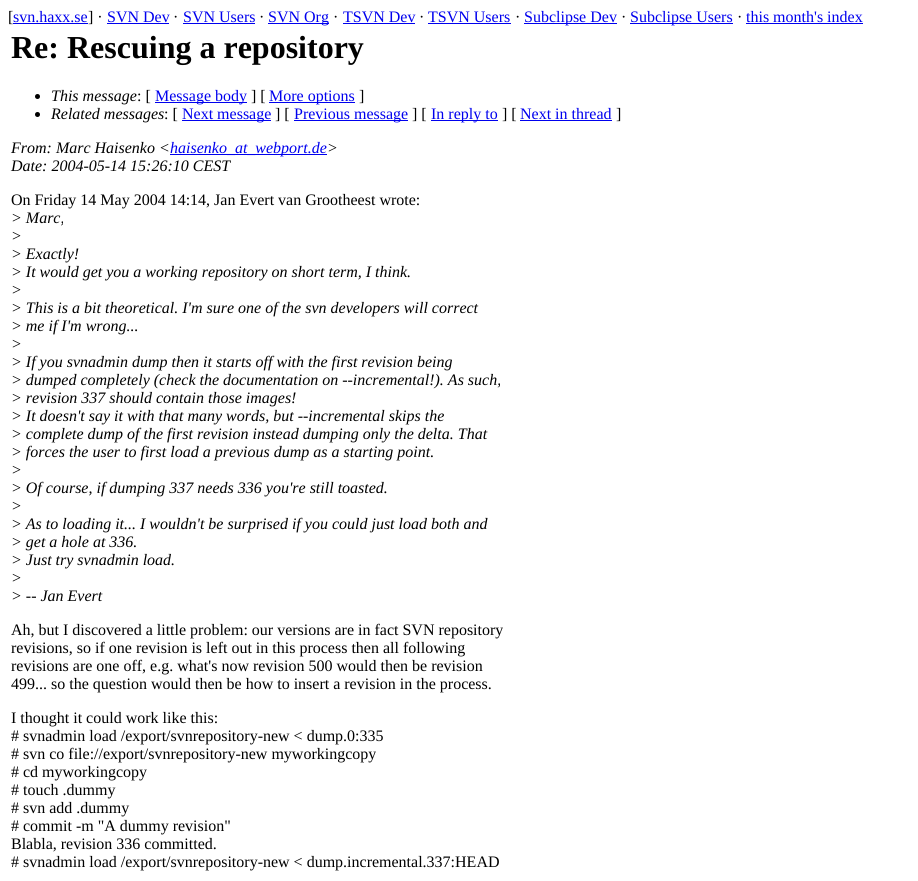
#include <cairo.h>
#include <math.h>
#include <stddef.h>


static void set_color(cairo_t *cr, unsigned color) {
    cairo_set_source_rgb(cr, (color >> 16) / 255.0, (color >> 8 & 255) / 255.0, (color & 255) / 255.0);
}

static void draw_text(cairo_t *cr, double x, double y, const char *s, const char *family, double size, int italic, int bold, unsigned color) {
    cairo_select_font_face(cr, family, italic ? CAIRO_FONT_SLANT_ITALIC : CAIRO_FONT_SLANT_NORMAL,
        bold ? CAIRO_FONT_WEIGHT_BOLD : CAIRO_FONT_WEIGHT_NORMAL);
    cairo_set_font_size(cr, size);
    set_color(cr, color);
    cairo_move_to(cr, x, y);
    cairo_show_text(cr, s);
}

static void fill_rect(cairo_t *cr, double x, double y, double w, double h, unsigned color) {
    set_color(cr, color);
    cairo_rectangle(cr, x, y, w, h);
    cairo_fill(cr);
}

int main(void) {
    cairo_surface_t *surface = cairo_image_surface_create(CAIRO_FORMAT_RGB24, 918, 881);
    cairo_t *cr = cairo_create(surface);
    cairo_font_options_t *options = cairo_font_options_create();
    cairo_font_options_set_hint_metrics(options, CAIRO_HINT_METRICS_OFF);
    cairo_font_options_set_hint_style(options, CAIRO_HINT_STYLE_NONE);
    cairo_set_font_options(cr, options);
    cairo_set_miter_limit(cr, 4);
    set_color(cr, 0xFFFFFF);
    cairo_paint(cr);
    draw_text(cr, 8, 22, "[", "Liberation Serif", 16, 0, 0, 0x000000);
    draw_text(cr, 13, 22, "svn.haxx.se", "Liberation Serif", 16, 0, 0, 0x0000EE);
    fill_rect(cr, 13, 23, 75, 1, 0x0000EE);
    draw_text(cr, 88, 22, "] ·", "Liberation Serif", 16, 0, 0, 0x000000);
    draw_text(cr, 107, 22, "SVN Dev", "Liberation Serif", 16, 0, 0, 0x0000EE);
    fill_rect(cr, 107, 23, 62, 1, 0x0000EE);
    draw_text(cr, 173, 22, "·", "Liberation Serif", 16, 0, 0, 0x000000);
    draw_text(cr, 183, 22, "SVN Users", "Liberation Serif", 16, 0, 0, 0x0000EE);
    fill_rect(cr, 183, 23, 72, 1, 0x0000EE);
    draw_text(cr, 259, 22, "·", "Liberation Serif", 16, 0, 0, 0x000000);
    fill_rect(cr, 268, 23, 61, 1, 0x0000EE);
    draw_text(cr, 268, 22, "SVN Org", "Liberation Serif", 16, 0, 0, 0x0000EE);
    draw_text(cr, 333, 22, "·", "Liberation Serif", 16, 0, 0, 0x000000);
    draw_text(cr, 343, 22, "TSVN Dev", "Liberation Serif", 16, 0, 0, 0x0000EE);
    fill_rect(cr, 343, 23, 72, 1, 0x0000EE);
    draw_text(cr, 419, 22, "·", "Liberation Serif", 16, 0, 0, 0x000000);
    draw_text(cr, 428, 22, "TSVN Users", "Liberation Serif", 16, 0, 0, 0x0000EE);
    fill_rect(cr, 428, 23, 83, 1, 0x0000EE);
    draw_text(cr, 515, 22, "·", "Liberation Serif", 16, 0, 0, 0x000000);
    fill_rect(cr, 524, 23, 93, 1, 0x0000EE);
    draw_text(cr, 524, 22, "Subclipse Dev", "Liberation Serif", 16, 0, 0, 0x0000EE);
    draw_text(cr, 621, 22, "·", "Liberation Serif", 16, 0, 0, 0x000000);
    fill_rect(cr, 630, 23, 103, 1, 0x0000EE);
    draw_text(cr, 630, 22, "Subclipse Users", "Liberation Serif", 16, 0, 0, 0x0000EE);
    draw_text(cr, 737, 22, "·", "Liberation Serif", 16, 0, 0, 0x000000);
    draw_text(cr, 746, 22, "this month's index", "Liberation Serif", 16, 0, 0, 0x0000EE);
    fill_rect(cr, 746, 23, 117, 1, 0x0000EE);
    draw_text(cr, 11, 58, "Re: Rescuing a repository", "Liberation Serif", 32, 0, 1, 0x000000);
    cairo_new_path(cr);
    cairo_arc(cr, 37.5, 96.5, 2.5, 0, 2 * M_PI);
    cairo_fill(cr);
    draw_text(cr, 51, 101, "This message", "Liberation Serif", 16, 1, 0, 0x000000);
    draw_text(cr, 137, 101, ": [", "Liberation Serif", 16, 0, 0, 0x000000);
    fill_rect(cr, 155, 102, 92, 1, 0x0000EE);
    draw_text(cr, 155, 101, "Message body", "Liberation Serif", 16, 0, 0, 0x0000EE);
    draw_text(cr, 251, 101, "] [", "Liberation Serif", 16, 0, 0, 0x000000);
    fill_rect(cr, 269, 102, 86, 1, 0x0000EE);
    draw_text(cr, 269, 101, "More options", "Liberation Serif", 16, 0, 0, 0x0000EE);
    draw_text(cr, 359, 101, "]", "Liberation Serif", 16, 0, 0, 0x000000);
    cairo_new_path(cr);
    cairo_arc(cr, 37.5, 114.5, 2.5, 0, 2 * M_PI);
    cairo_fill(cr);
    draw_text(cr, 51, 119, "Related messages", "Liberation Serif", 16, 1, 0, 0x000000);
    draw_text(cr, 164, 119, ": [", "Liberation Serif", 16, 0, 0, 0x000000);
    fill_rect(cr, 182, 120, 89, 1, 0x0000EE);
    draw_text(cr, 182, 119, "Next message", "Liberation Serif", 16, 0, 0, 0x0000EE);
    draw_text(cr, 275, 119, "] [", "Liberation Serif", 16, 0, 0, 0x000000);
    fill_rect(cr, 294, 120, 114, 1, 0x0000EE);
    draw_text(cr, 294, 119, "Previous message", "Liberation Serif", 16, 0, 0, 0x0000EE);
    draw_text(cr, 412, 119, "] [", "Liberation Serif", 16, 0, 0, 0x000000);
    fill_rect(cr, 431, 120, 67, 1, 0x0000EE);
    draw_text(cr, 431, 119, "In reply to", "Liberation Serif", 16, 0, 0, 0x0000EE);
    draw_text(cr, 502, 119, "] [", "Liberation Serif", 16, 0, 0, 0x000000);
    draw_text(cr, 520, 119, "Next in thread", "Liberation Serif", 16, 0, 0, 0x0000EE);
    fill_rect(cr, 520, 120, 92, 1, 0x0000EE);
    draw_text(cr, 616, 119, "]", "Liberation Serif", 16, 0, 0, 0x000000);
    draw_text(cr, 11, 153, "From: Marc Haisenko <", "Liberation Serif", 16, 1, 0, 0x000000);
    fill_rect(cr, 170, 154, 157, 1, 0x0000EE);
    draw_text(cr, 170, 153, "haisenko_at_webport.de", "Liberation Serif", 16, 1, 0, 0x0000EE);
    draw_text(cr, 327, 153, ">", "Liberation Serif", 16, 1, 0, 0x000000);
    draw_text(cr, 11, 171, "Date: 2004-05-14 15:26:10 CEST", "Liberation Serif", 16, 1, 0, 0x000000);
    draw_text(cr, 11, 205, "On Friday 14 May 2004 14:14, Jan Evert van Grootheest wrote:", "Liberation Serif", 16, 0, 0, 0x000000);
    draw_text(cr, 11, 223, "> Marc,", "Liberation Serif", 16, 1, 0, 0x000000);
    draw_text(cr, 11, 241, ">", "Liberation Serif", 16, 1, 0, 0x000000);
    draw_text(cr, 11, 259, "> Exactly!", "Liberation Serif", 16, 1, 0, 0x000000);
    draw_text(cr, 11, 277, "> It would get you a working repository on short term, I think.", "Liberation Serif", 16, 1, 0, 0x000000);
    draw_text(cr, 11, 295, ">", "Liberation Serif", 16, 1, 0, 0x000000);
    draw_text(cr, 11, 313, "> This is a bit theoretical. I'm sure one of the svn developers will correct", "Liberation Serif", 16, 1, 0, 0x000000);
    draw_text(cr, 11, 331, "> me if I'm wrong...", "Liberation Serif", 16, 1, 0, 0x000000);
    draw_text(cr, 11, 349, ">", "Liberation Serif", 16, 1, 0, 0x000000);
    draw_text(cr, 11, 367, "> If you svnadmin dump then it starts off with the first revision being", "Liberation Serif", 16, 1, 0, 0x000000);
    draw_text(cr, 11, 385, "> dumped completely (check the documentation on --incremental!). As such,", "Liberation Serif", 16, 1, 0, 0x000000);
    draw_text(cr, 11, 403, "> revision 337 should contain those images!", "Liberation Serif", 16, 1, 0, 0x000000);
    draw_text(cr, 11, 421, "> It doesn't say it with that many words, but --incremental skips the", "Liberation Serif", 16, 1, 0, 0x000000);
    draw_text(cr, 11, 439, "> complete dump of the first revision instead dumping only the delta. That", "Liberation Serif", 16, 1, 0, 0x000000);
    draw_text(cr, 11, 457, "> forces the user to first load a previous dump as a starting point.", "Liberation Serif", 16, 1, 0, 0x000000);
    draw_text(cr, 11, 475, ">", "Liberation Serif", 16, 1, 0, 0x000000);
    draw_text(cr, 11, 493, "> Of course, if dumping 337 needs 336 you're still toasted.", "Liberation Serif", 16, 1, 0, 0x000000);
    draw_text(cr, 11, 511, ">", "Liberation Serif", 16, 1, 0, 0x000000);
    draw_text(cr, 11, 529, "> As to loading it... I wouldn't be surprised if you could just load both and", "Liberation Serif", 16, 1, 0, 0x000000);
    draw_text(cr, 11, 547, "> get a hole at 336.", "Liberation Serif", 16, 1, 0, 0x000000);
    draw_text(cr, 11, 565, "> Just try svnadmin load.", "Liberation Serif", 16, 1, 0, 0x000000);
    draw_text(cr, 11, 583, ">", "Liberation Serif", 16, 1, 0, 0x000000);
    draw_text(cr, 11, 601, "> -- Jan Evert", "Liberation Serif", 16, 1, 0, 0x000000);
    draw_text(cr, 11, 635, "Ah, but I discovered a little problem: our versions are in fact SVN repository", "Liberation Serif", 16, 0, 0, 0x000000);
    draw_text(cr, 11, 653, "revisions, so if one revision is left out in this process then all following", "Liberation Serif", 16, 0, 0, 0x000000);
    draw_text(cr, 11, 671, "revisions are one off, e.g. what's now revision 500 would then be revision", "Liberation Serif", 16, 0, 0, 0x000000);
    draw_text(cr, 11, 689, "499... so the question would then be how to insert a revision in the process.", "Liberation Serif", 16, 0, 0, 0x000000);
    draw_text(cr, 11, 723, "I thought it could work like this:", "Liberation Serif", 16, 0, 0, 0x000000);
    draw_text(cr, 11, 741, "# svnadmin load /export/svnrepository-new < dump.0:335", "Liberation Serif", 16, 0, 0, 0x000000);
    draw_text(cr, 11, 759, "# svn co file://export/svnrepository-new myworkingcopy", "Liberation Serif", 16, 0, 0, 0x000000);
    draw_text(cr, 11, 777, "# cd myworkingcopy", "Liberation Serif", 16, 0, 0, 0x000000);
    draw_text(cr, 11, 795, "# touch .dummy", "Liberation Serif", 16, 0, 0, 0x000000);
    draw_text(cr, 11, 813, "# svn add .dummy", "Liberation Serif", 16, 0, 0, 0x000000);
    draw_text(cr, 11, 831, "# commit -m \"A dummy revision\"", "Liberation Serif", 16, 0, 0, 0x000000);
    draw_text(cr, 11, 849, "Blabla, revision 336 committed.", "Liberation Serif", 16, 0, 0, 0x000000);
    draw_text(cr, 11, 867, "# svnadmin load /export/svnrepository-new < dump.incremental.337:HEAD", "Liberation Serif", 16, 0, 0, 0x000000);
    cairo_surface_write_to_png(surface, "output.png");
    cairo_font_options_destroy(options);
    cairo_destroy(cr);
    cairo_surface_destroy(surface);
    return 0;
}
